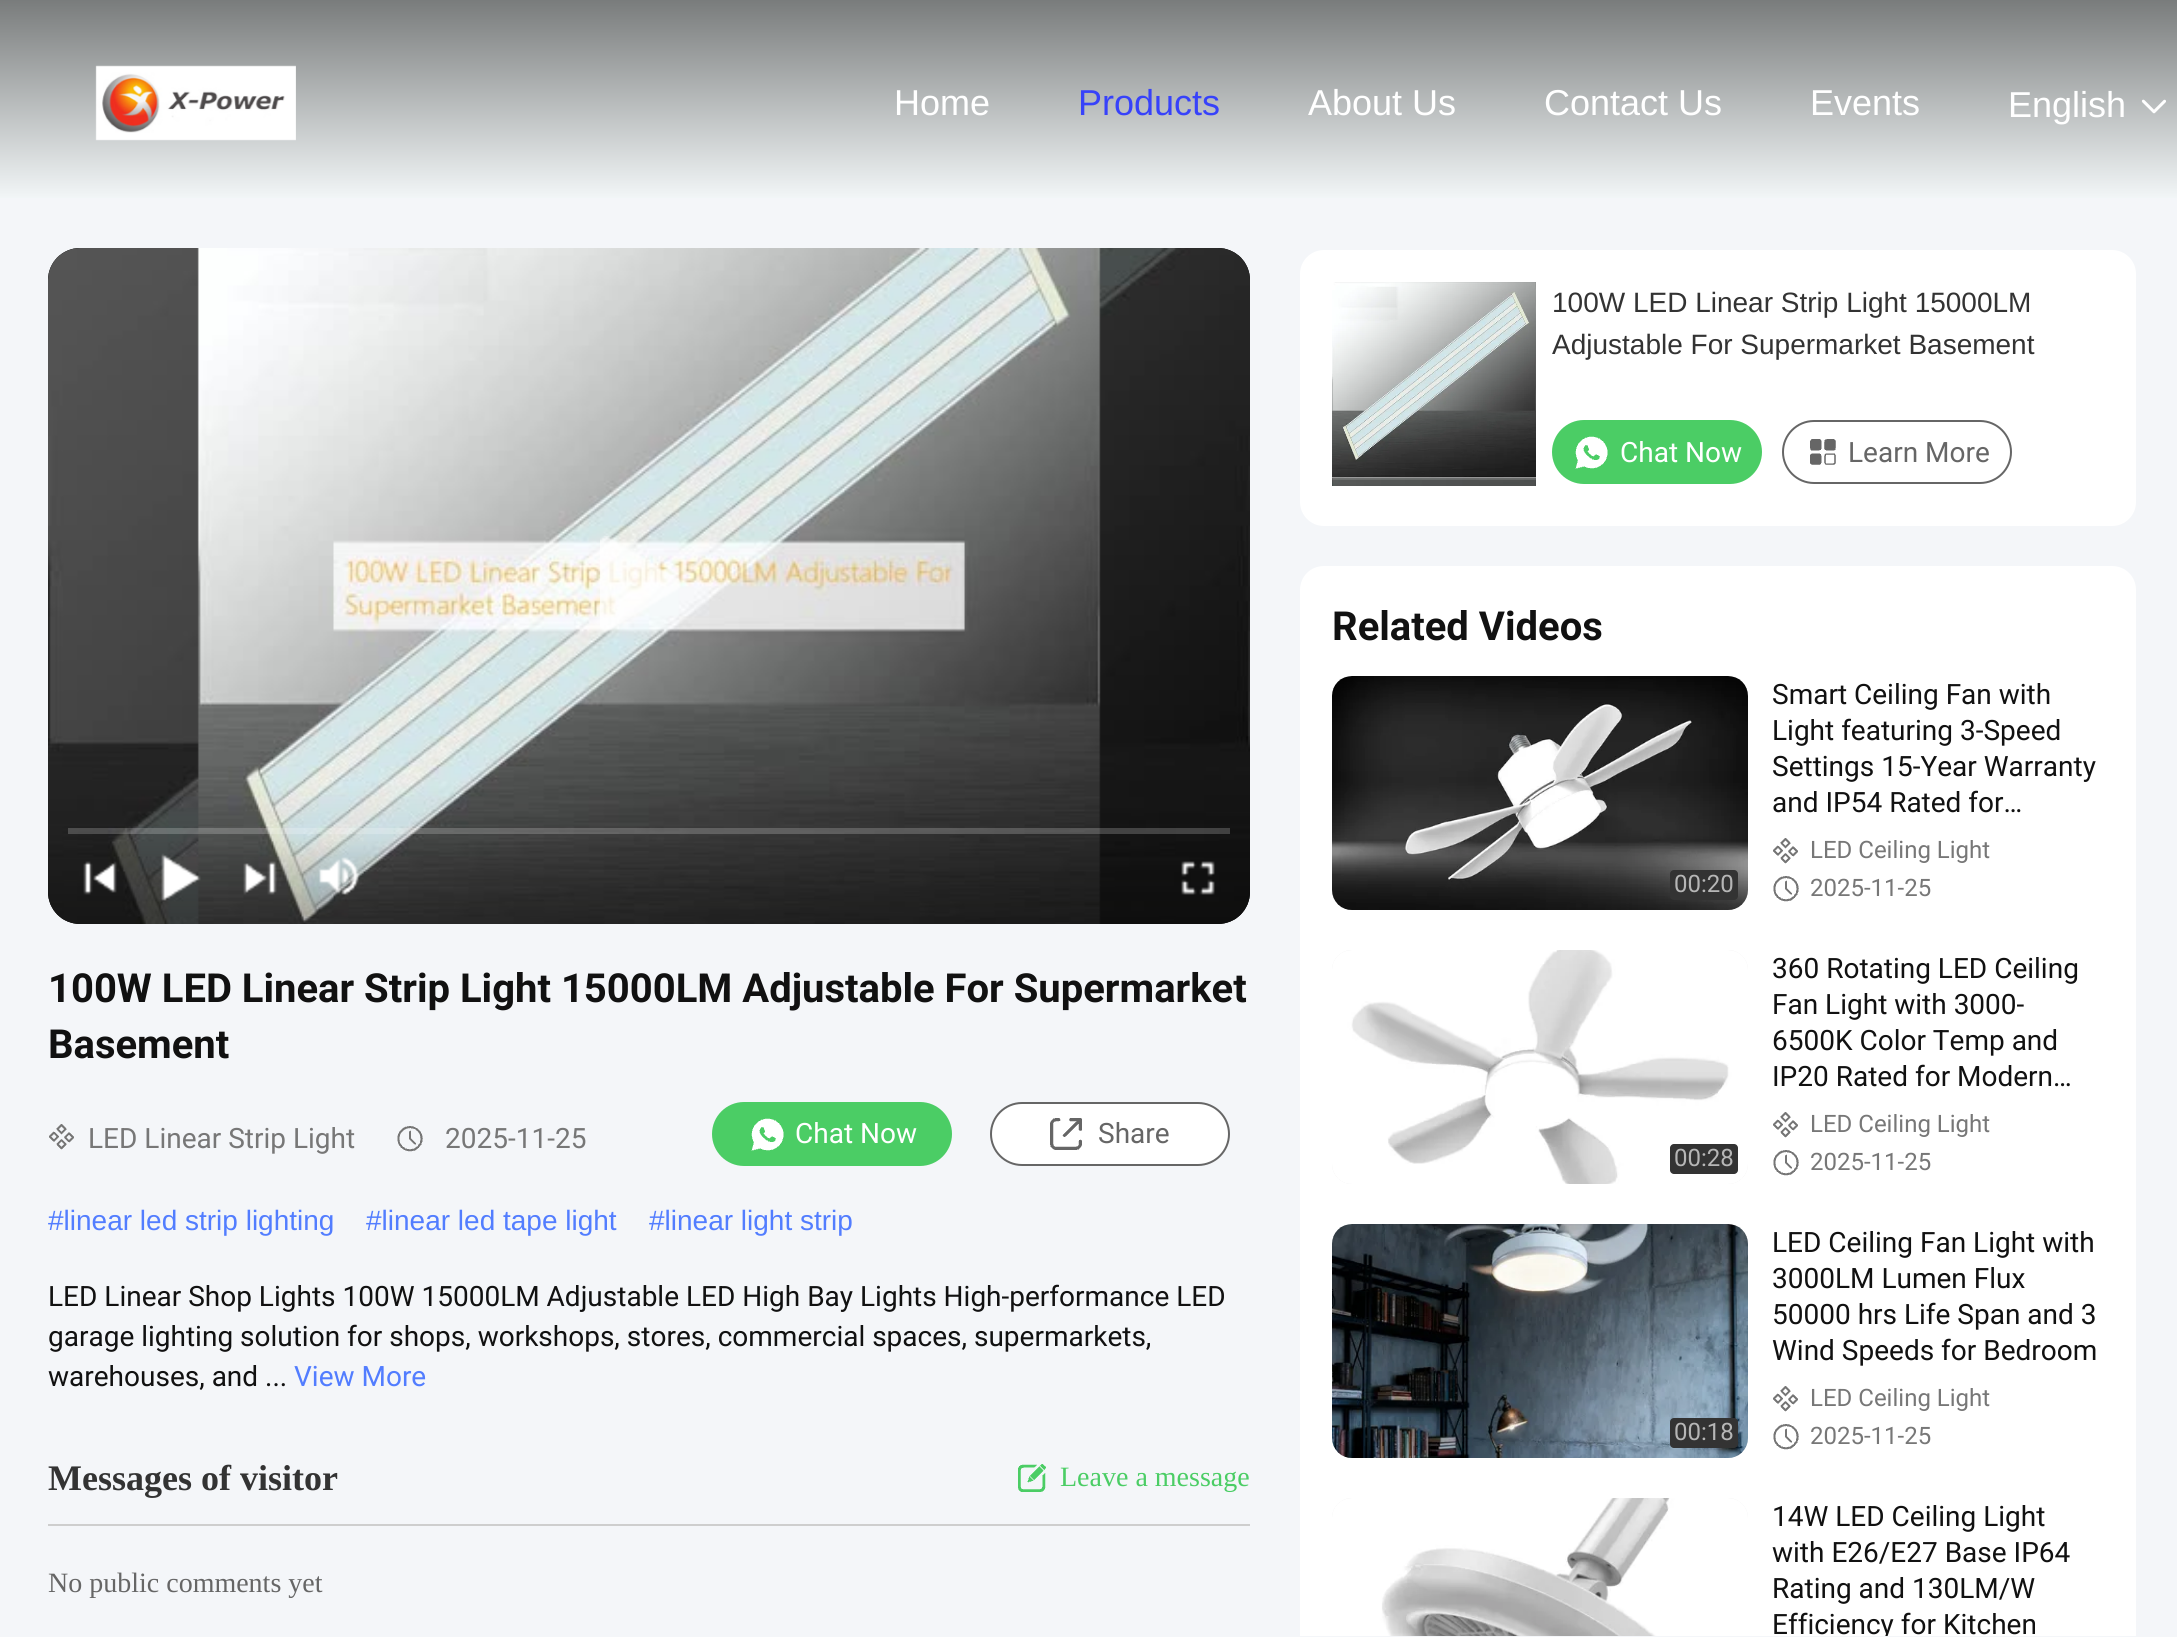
#include <cairo.h>
#include <math.h>
#include <stddef.h>


static void set_color(cairo_t *cr, unsigned color) {
    cairo_set_source_rgb(cr, (color >> 16) / 255.0, (color >> 8 & 255) / 255.0, (color & 255) / 255.0);
}

static void draw_text(cairo_t *cr, double x, double y, const char *s, const char *family, double size, int italic, int bold, unsigned color) {
    cairo_select_font_face(cr, family, italic ? CAIRO_FONT_SLANT_ITALIC : CAIRO_FONT_SLANT_NORMAL,
        bold ? CAIRO_FONT_WEIGHT_BOLD : CAIRO_FONT_WEIGHT_NORMAL);
    cairo_set_font_size(cr, size);
    set_color(cr, color);
    cairo_move_to(cr, x, y);
    cairo_show_text(cr, s);
}

static void fill_rect(cairo_t *cr, double x, double y, double w, double h, unsigned color) {
    set_color(cr, color);
    cairo_rectangle(cr, x, y, w, h);
    cairo_fill(cr);
}

static void rounded_rect(cairo_t *cr, double x, double y, double w, double h, double r) {
    cairo_new_sub_path(cr);
    cairo_arc(cr, x + w - r, y + h - r, r, 0, M_PI / 2);
    cairo_arc(cr, x + r, y + h - r, r, M_PI / 2, M_PI);
    cairo_arc(cr, x + r, y + r, r, M_PI, 1.5 * M_PI);
    cairo_arc(cr, x + w - r, y + r, r, 1.5 * M_PI, 2 * M_PI);
    cairo_close_path(cr);
}

static void draw_image(cairo_t *cr, const char *path, double x, double y, double w, double h) {
    cairo_surface_t *image = cairo_image_surface_create_from_png(path);
    cairo_save(cr);
    cairo_set_source_surface(cr, image, x, y);
    cairo_rectangle(cr, x, y, w, h);
    cairo_fill(cr);
    cairo_restore(cr);
    cairo_surface_destroy(image);
}

int main(void) {
    cairo_surface_t *surface = cairo_image_surface_create(CAIRO_FORMAT_RGB24, 2177, 1637);
    cairo_t *cr = cairo_create(surface);
    cairo_font_options_t *options = cairo_font_options_create();
    cairo_font_options_set_hint_metrics(options, CAIRO_HINT_METRICS_OFF);
    cairo_font_options_set_hint_style(options, CAIRO_HINT_STYLE_NONE);
    cairo_set_font_options(cr, options);
    cairo_set_miter_limit(cr, 4);
    cairo_pattern_t *gradient;
    set_color(cr, 0xF4F6F9);
    cairo_paint(cr);
    gradient = cairo_pattern_create_linear(1089, 0, 1089, 200);
    cairo_pattern_add_color_stop_rgba(gradient, 0, 0.475, 0.486, 0.486, 1);
    cairo_pattern_add_color_stop_rgba(gradient, 1, 0.953, 0.969, 0.973, 1);
    cairo_set_source(cr, gradient);
    cairo_pattern_destroy(gradient);
    cairo_rectangle(cr, 0, 0, 2177, 198);
    cairo_fill(cr);
    draw_image(cr, "assets/img1.png", 95, 65, 201, 76);
    draw_text(cr, 894, 115, "Home", "Liberation Sans", 36, 0, 0, 0xFFFFFF);
    draw_text(cr, 1078, 115, "Products", "Liberation Sans", 36, 0, 0, 0x3742FA);
    draw_text(cr, 1308, 115, "About Us", "Liberation Sans", 36, 0, 0, 0xFFFFFF);
    draw_text(cr, 1544, 115, "Contact Us", "Liberation Sans", 36, 0, 0, 0xFFFFFF);
    draw_text(cr, 1810, 115, "Events", "Liberation Sans", 36, 0, 0, 0xFFFFFF);
    draw_text(cr, 2008, 117, "English", "Liberation Sans", 36, 0, 0, 0xFFFFFF);
    draw_image(cr, "assets/img2.png", 2141, 99, 25, 15);
    set_color(cr, 0x000000);
    rounded_rect(cr, 48, 248, 1202, 676, 32);
    cairo_fill(cr);
    draw_image(cr, "assets/img3.png", 48, 248, 1202, 676);
    draw_image(cr, "assets/img4.png", 600, 536, 81, 97);
    gradient = cairo_pattern_create_linear(649, 924, 649, 784);
    cairo_pattern_add_color_stop_rgba(gradient, 0.05, 0.055, 0.055, 0.051, 0.3);
    cairo_pattern_add_color_stop_rgba(gradient, 0.6, 0.055, 0.055, 0.055, 0.05);
    cairo_pattern_add_color_stop_rgba(gradient, 1, 0.055, 0.055, 0.055, 0);
    cairo_set_source(cr, gradient);
    cairo_pattern_destroy(gradient);
    cairo_new_path(cr);
    cairo_move_to(cr, 48, 784);
    cairo_line_to(cr, 1250, 784);
    cairo_line_to(cr, 1250, 892);
    cairo_curve_to(cr, 1250, 909.5, 1235.5, 924, 1218, 924);
    cairo_line_to(cr, 80, 924);
    cairo_curve_to(cr, 62.5, 924, 48, 909.5, 48, 892);
    cairo_close_path(cr);
    cairo_fill(cr);
    cairo_set_source_rgba(cr, 1, 1, 1, 0.2);
    cairo_rectangle(cr, 68, 828, 1162, 6);
    cairo_fill(cr);
    draw_image(cr, "assets/img5.png", 83, 861, 34, 34);
    draw_image(cr, "assets/img6.png", 161, 853, 40, 48);
    draw_image(cr, "assets/img7.png", 243, 861, 34, 34);
    draw_image(cr, "assets/img8.png", 319, 857, 40, 38);
    draw_image(cr, "assets/img9.png", 1181, 861, 34, 34);
    draw_text(cr, 48, 1002, "100W LED Linear Strip Light 15000LM Adjustable For Supermarket", "Roboto", 40, 0, 1, 0x111111);
    draw_text(cr, 48, 1058, "Basement", "Roboto", 40, 0, 1, 0x111111);
    draw_image(cr, "assets/img10.png", 49, 1124, 25, 26);
    draw_text(cr, 88, 1148, "LED Linear Strip Light", "Roboto", 28, 0, 0, 0x777777);
    draw_image(cr, "assets/img11.png", 397, 1126, 26, 26);
    draw_text(cr, 445, 1148, "2025-11-25", "Roboto", 28, 0, 0, 0x777777);
    set_color(cr, 0x4BCD65);
    rounded_rect(cr, 712, 1102, 240, 64, 32);
    cairo_fill(cr);
    draw_image(cr, "assets/img12.png", 751, 1118, 33, 33);
    draw_text(cr, 795, 1143, "Chat Now", "Roboto", 28, 0, 0, 0xFFFFFF);
    rounded_rect(cr, 991, 1103, 238, 62, 31);
    cairo_fill_preserve(cr);
    set_color(cr, 0x666666);
    cairo_stroke(cr);
    draw_image(cr, "assets/img13.png", 1050, 1118, 32, 32);
    draw_text(cr, 1098, 1143, "Share", "Roboto", 28, 0, 0, 0x666666);
    draw_text(cr, 48, 1230, "#linear led strip lighting", "Liberation Sans", 28, 0, 0, 0x527DFF);
    draw_text(cr, 366, 1230, "#linear led tape light", "Liberation Sans", 28, 0, 0, 0x527DFF);
    draw_text(cr, 649, 1230, "#linear light strip", "Liberation Sans", 28, 0, 0, 0x527DFF);
    draw_text(cr, 48, 1306, "LED Linear Shop Lights 100W 15000LM Adjustable LED High Bay Lights High-performance LED", "Roboto", 28, 0, 0, 0x111111);
    draw_text(cr, 48, 1346, "garage lighting solution for shops, workshops, stores, commercial spaces, supermarkets,", "Roboto", 28, 0, 0, 0x111111);
    draw_text(cr, 48, 1386, "warehouses, and ...", "Roboto", 28, 0, 0, 0x111111);
    draw_text(cr, 294, 1386, "View More", "Roboto", 28, 0, 0, 0x527DFF);
    fill_rect(cr, 48, 1524, 1202, 2, 0xCECECE);
    draw_text(cr, 48, 1490, "Messages of visitor", "Liberation Serif", 36, 0, 1, 0x333333);
    draw_image(cr, "assets/img14.png", 1018, 1464, 28, 28);
    draw_text(cr, 1060, 1486, "Leave a message", "Liberation Serif", 28, 0, 0, 0x4BCD65);
    draw_text(cr, 48, 1592, "No public comments yet", "Liberation Serif", 28, 0, 0, 0x666666);
    set_color(cr, 0xFFFFFF);
    rounded_rect(cr, 1300, 250, 836, 276, 24);
    cairo_fill(cr);
    draw_image(cr, "assets/img15.png", 1332, 282, 204, 204);
    draw_text(cr, 1552, 312, "100W LED Linear Strip Light 15000LM", "Liberation Sans", 28, 0, 0, 0x333333);
    draw_text(cr, 1552, 354, "Adjustable For Supermarket Basement", "Liberation Sans", 28, 0, 0, 0x333333);
    set_color(cr, 0x4BCD65);
    rounded_rect(cr, 1552, 420, 210, 64, 32);
    cairo_fill(cr);
    draw_image(cr, "assets/img12.png", 1575, 436, 33, 33);
    draw_text(cr, 1620, 462, "Chat Now", "Roboto", 28, 0, 0, 0xFFFFFF);
    rounded_rect(cr, 1783, 421, 228, 62, 31);
    set_color(cr, 0x666666);
    cairo_stroke(cr);
    draw_image(cr, "assets/img16.png", 1810, 439, 26, 26);
    draw_text(cr, 1848, 462, "Learn More", "Roboto", 28, 0, 0, 0x666666);
    set_color(cr, 0xFFFFFF);
    cairo_new_path(cr);
    cairo_move_to(cr, 1324, 566);
    cairo_line_to(cr, 2112, 566);
    cairo_curve_to(cr, 2125.5, 566, 2136, 576.5, 2136, 590);
    cairo_line_to(cr, 2136, 1636);
    cairo_line_to(cr, 1300, 1636);
    cairo_line_to(cr, 1300, 590);
    cairo_curve_to(cr, 1300, 576.5, 1310.5, 566, 1324, 566);
    cairo_close_path(cr);
    cairo_fill(cr);
    draw_text(cr, 1332, 640, "Related Videos", "Roboto", 40, 0, 1, 0x111111);
    set_color(cr, 0xEEEEEE);
    rounded_rect(cr, 1332, 676, 416, 234, 20);
    cairo_fill(cr);
    draw_image(cr, "assets/img17.png", 1332, 676, 416, 234);
    set_color(cr, 0x333333);
    rounded_rect(cr, 1670, 870, 68, 30, 4);
    cairo_fill(cr);
    draw_text(cr, 1674, 892, "00:20", "Roboto", 24, 0, 0, 0xB6B6B6);
    draw_text(cr, 1772, 704, "Smart Ceiling Fan with", "Roboto", 28, 0, 0, 0x111111);
    draw_text(cr, 1772, 740, "Light featuring 3-Speed", "Roboto", 28, 0, 0, 0x111111);
    draw_text(cr, 1772, 776, "Settings 15-Year Warranty", "Roboto", 28, 0, 0, 0x111111);
    draw_text(cr, 1772, 812, "and IP54 Rated for…", "Roboto", 28, 0, 0, 0x111111);
    draw_image(cr, "assets/img18.png", 1773, 838, 25, 26);
    draw_text(cr, 1810, 858, "LED Ceiling Light", "Roboto", 24, 0, 0, 0x777777);
    draw_image(cr, "assets/img19.png", 1773, 876, 26, 26);
    draw_text(cr, 1810, 896, "2025-11-25", "Roboto", 24, 0, 0, 0x777777);
    set_color(cr, 0xEEEEEE);
    rounded_rect(cr, 1332, 950, 416, 234, 20);
    cairo_fill(cr);
    draw_image(cr, "assets/img20.png", 1332, 950, 416, 234);
    set_color(cr, 0x333333);
    rounded_rect(cr, 1670, 1144, 68, 30, 4);
    cairo_fill(cr);
    draw_text(cr, 1674, 1166, "00:28", "Roboto", 24, 0, 0, 0xB6B6B6);
    draw_text(cr, 1772, 978, "360 Rotating LED Ceiling", "Roboto", 28, 0, 0, 0x111111);
    draw_text(cr, 1772, 1014, "Fan Light with 3000-", "Roboto", 28, 0, 0, 0x111111);
    draw_text(cr, 1772, 1050, "6500K Color Temp and", "Roboto", 28, 0, 0, 0x111111);
    draw_text(cr, 1772, 1086, "IP20 Rated for Modern…", "Roboto", 28, 0, 0, 0x111111);
    draw_image(cr, "assets/img18.png", 1773, 1112, 25, 26);
    draw_text(cr, 1810, 1132, "LED Ceiling Light", "Roboto", 24, 0, 0, 0x777777);
    draw_image(cr, "assets/img19.png", 1773, 1150, 26, 26);
    draw_text(cr, 1810, 1170, "2025-11-25", "Roboto", 24, 0, 0, 0x777777);
    set_color(cr, 0xEEEEEE);
    rounded_rect(cr, 1332, 1224, 416, 234, 20);
    cairo_fill(cr);
    draw_image(cr, "assets/img21.png", 1332, 1224, 416, 234);
    set_color(cr, 0x333333);
    rounded_rect(cr, 1670, 1418, 68, 30, 4);
    cairo_fill(cr);
    draw_text(cr, 1674, 1440, "00:18", "Roboto", 24, 0, 0, 0xB6B6B6);
    draw_text(cr, 1772, 1252, "LED Ceiling Fan Light with", "Roboto", 28, 0, 0, 0x111111);
    draw_text(cr, 1772, 1288, "3000LM Lumen Flux", "Roboto", 28, 0, 0, 0x111111);
    draw_text(cr, 1772, 1324, "50000 hrs Life Span and 3", "Roboto", 28, 0, 0, 0x111111);
    draw_text(cr, 1772, 1360, "Wind Speeds for Bedroom", "Roboto", 28, 0, 0, 0x111111);
    draw_image(cr, "assets/img18.png", 1773, 1386, 25, 26);
    draw_text(cr, 1810, 1406, "LED Ceiling Light", "Roboto", 24, 0, 0, 0x777777);
    draw_image(cr, "assets/img19.png", 1773, 1424, 26, 26);
    draw_text(cr, 1810, 1444, "2025-11-25", "Roboto", 24, 0, 0, 0x777777);
    set_color(cr, 0xEEEEEE);
    cairo_new_path(cr);
    cairo_move_to(cr, 1352, 1498);
    cairo_line_to(cr, 1728, 1498);
    cairo_curve_to(cr, 1739, 1498, 1748, 1507, 1748, 1518);
    cairo_line_to(cr, 1748, 1636);
    cairo_line_to(cr, 1332, 1636);
    cairo_line_to(cr, 1332, 1518);
    cairo_curve_to(cr, 1332, 1507, 1341, 1498, 1352, 1498);
    cairo_close_path(cr);
    cairo_fill(cr);
    draw_image(cr, "assets/img22.png", 1332, 1498, 416, 138);
    draw_text(cr, 1772, 1526, "14W LED Ceiling Light", "Roboto", 28, 0, 0, 0x111111);
    draw_text(cr, 1772, 1562, "with E26/E27 Base IP64", "Roboto", 28, 0, 0, 0x111111);
    draw_text(cr, 1772, 1598, "Rating and 130LM/W", "Roboto", 28, 0, 0, 0x111111);
    cairo_save(cr);
    cairo_rectangle(cr, 1772, 1498, 332, 138);
    cairo_clip(cr);
    draw_text(cr, 1772, 1634, "Efficiency for Kitchen", "Roboto", 28, 0, 0, 0x111111);
    cairo_restore(cr);
    cairo_surface_write_to_png(surface, "output.png");
    cairo_font_options_destroy(options);
    cairo_destroy(cr);
    cairo_surface_destroy(surface);
    return 0;
}
